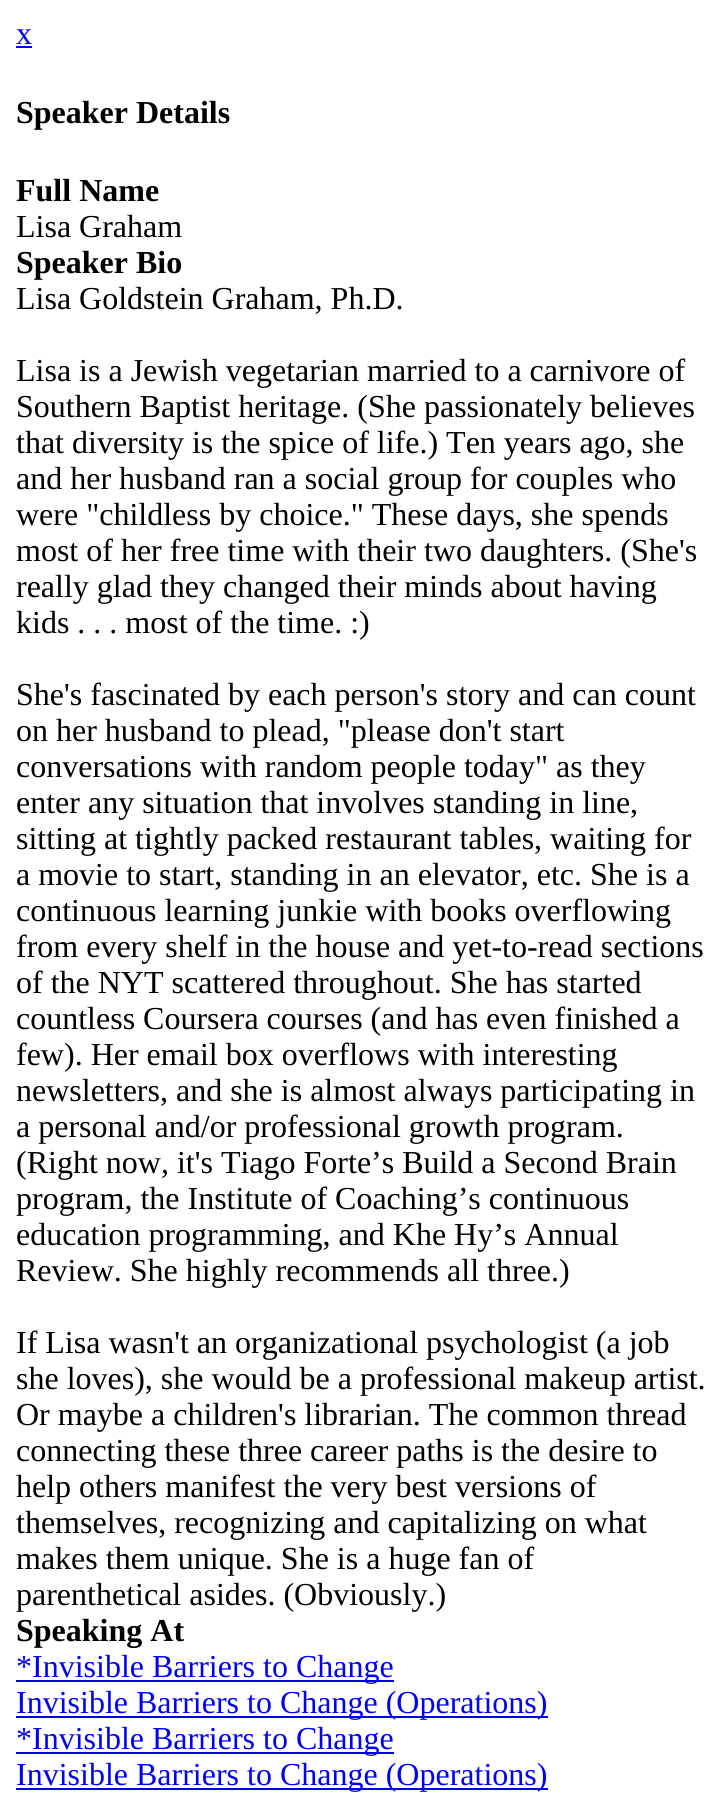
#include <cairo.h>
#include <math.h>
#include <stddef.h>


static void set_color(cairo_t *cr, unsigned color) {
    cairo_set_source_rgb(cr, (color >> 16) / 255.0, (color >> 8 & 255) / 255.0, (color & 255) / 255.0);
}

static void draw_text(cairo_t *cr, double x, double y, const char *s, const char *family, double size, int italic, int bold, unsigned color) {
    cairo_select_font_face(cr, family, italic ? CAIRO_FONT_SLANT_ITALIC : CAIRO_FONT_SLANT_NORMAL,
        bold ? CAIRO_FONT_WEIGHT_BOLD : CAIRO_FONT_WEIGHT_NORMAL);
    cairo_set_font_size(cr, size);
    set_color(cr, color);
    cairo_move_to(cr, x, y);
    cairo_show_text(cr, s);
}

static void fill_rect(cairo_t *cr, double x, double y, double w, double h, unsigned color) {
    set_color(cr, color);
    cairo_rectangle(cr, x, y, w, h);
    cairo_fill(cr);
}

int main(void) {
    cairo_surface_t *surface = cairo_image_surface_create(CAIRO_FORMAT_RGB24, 721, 1813);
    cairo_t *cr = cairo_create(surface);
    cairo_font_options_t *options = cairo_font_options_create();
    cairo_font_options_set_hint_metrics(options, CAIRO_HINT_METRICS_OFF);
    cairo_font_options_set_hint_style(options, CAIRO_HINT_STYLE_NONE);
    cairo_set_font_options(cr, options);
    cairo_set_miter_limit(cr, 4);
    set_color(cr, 0xFFFFFF);
    cairo_paint(cr);
    draw_text(cr, 16, 44, "x", "Liberation Serif", 32, 0, 0, 0x0000EE);
    fill_rect(cr, 16, 46, 16, 2, 0x0000EE);
    draw_text(cr, 16, 123, "Speaker Details", "Liberation Serif", 32, 0, 1, 0x000000);
    draw_text(cr, 16, 201, "Full Name", "Liberation Serif", 32, 0, 1, 0x000000);
    draw_text(cr, 16, 237, "Lisa Graham", "Liberation Serif", 32, 0, 0, 0x000000);
    draw_text(cr, 16, 273, "Speaker Bio", "Liberation Serif", 32, 0, 1, 0x000000);
    draw_text(cr, 16, 309, "Lisa Goldstein Graham, Ph.D.", "Liberation Serif", 32, 0, 0, 0x000000);
    draw_text(cr, 16, 381, "Lisa is a Jewish vegetarian married to a carnivore of", "Liberation Serif", 32, 0, 0, 0x000000);
    draw_text(cr, 16, 417, "Southern Baptist heritage. (She passionately believes", "Liberation Serif", 32, 0, 0, 0x000000);
    draw_text(cr, 16, 453, "that diversity is the spice of life.) Ten years ago, she", "Liberation Serif", 32, 0, 0, 0x000000);
    draw_text(cr, 16, 489, "and her husband ran a social group for couples who", "Liberation Serif", 32, 0, 0, 0x000000);
    draw_text(cr, 16, 525, "were \"childless by choice.\" These days, she spends", "Liberation Serif", 32, 0, 0, 0x000000);
    draw_text(cr, 16, 561, "most of her free time with their two daughters. (She's", "Liberation Serif", 32, 0, 0, 0x000000);
    draw_text(cr, 16, 597, "really glad they changed their minds about having", "Liberation Serif", 32, 0, 0, 0x000000);
    draw_text(cr, 16, 633, "kids . . . most of the time. :)", "Liberation Serif", 32, 0, 0, 0x000000);
    draw_text(cr, 16, 705, "She's fascinated by each person's story and can count", "Liberation Serif", 32, 0, 0, 0x000000);
    draw_text(cr, 16, 741, "on her husband to plead, \"please don't start", "Liberation Serif", 32, 0, 0, 0x000000);
    draw_text(cr, 16, 777, "conversations with random people today\" as they", "Liberation Serif", 32, 0, 0, 0x000000);
    draw_text(cr, 16, 813, "enter any situation that involves standing in line,", "Liberation Serif", 32, 0, 0, 0x000000);
    draw_text(cr, 16, 849, "sitting at tightly packed restaurant tables, waiting for", "Liberation Serif", 32, 0, 0, 0x000000);
    draw_text(cr, 16, 885, "a movie to start, standing in an elevator, etc. She is a", "Liberation Serif", 32, 0, 0, 0x000000);
    draw_text(cr, 16, 921, "continuous learning junkie with books overflowing", "Liberation Serif", 32, 0, 0, 0x000000);
    draw_text(cr, 16, 957, "from every shelf in the house and yet-to-read sections", "Liberation Serif", 32, 0, 0, 0x000000);
    draw_text(cr, 16, 993, "of the NYT scattered throughout. She has started", "Liberation Serif", 32, 0, 0, 0x000000);
    draw_text(cr, 16, 1029, "countless Coursera courses (and has even finished a", "Liberation Serif", 32, 0, 0, 0x000000);
    draw_text(cr, 16, 1065, "few). Her email box overflows with interesting", "Liberation Serif", 32, 0, 0, 0x000000);
    draw_text(cr, 16, 1101, "newsletters, and she is almost always participating in", "Liberation Serif", 32, 0, 0, 0x000000);
    draw_text(cr, 16, 1137, "a personal and/or professional growth program.", "Liberation Serif", 32, 0, 0, 0x000000);
    draw_text(cr, 16, 1173, "(Right now, it's Tiago Forte’s Build a Second Brain", "Liberation Serif", 32, 0, 0, 0x000000);
    draw_text(cr, 16, 1209, "program, the Institute of Coaching’s continuous", "Liberation Serif", 32, 0, 0, 0x000000);
    draw_text(cr, 16, 1245, "education programming, and Khe Hy’s Annual", "Liberation Serif", 32, 0, 0, 0x000000);
    draw_text(cr, 16, 1281, "Review. She highly recommends all three.)", "Liberation Serif", 32, 0, 0, 0x000000);
    draw_text(cr, 16, 1353, "If Lisa wasn't an organizational psychologist (a job", "Liberation Serif", 32, 0, 0, 0x000000);
    draw_text(cr, 16, 1389, "she loves), she would be a professional makeup artist.", "Liberation Serif", 32, 0, 0, 0x000000);
    draw_text(cr, 16, 1425, "Or maybe a children's librarian. The common thread", "Liberation Serif", 32, 0, 0, 0x000000);
    draw_text(cr, 16, 1461, "connecting these three career paths is the desire to", "Liberation Serif", 32, 0, 0, 0x000000);
    draw_text(cr, 16, 1497, "help others manifest the very best versions of", "Liberation Serif", 32, 0, 0, 0x000000);
    draw_text(cr, 16, 1533, "themselves, recognizing and capitalizing on what", "Liberation Serif", 32, 0, 0, 0x000000);
    draw_text(cr, 16, 1569, "makes them unique. She is a huge fan of", "Liberation Serif", 32, 0, 0, 0x000000);
    draw_text(cr, 16, 1605, "parenthetical asides. (Obviously.)", "Liberation Serif", 32, 0, 0, 0x000000);
    draw_text(cr, 16, 1641, "Speaking At", "Liberation Serif", 32, 0, 1, 0x000000);
    fill_rect(cr, 16, 1680, 378, 2, 0x0000EE);
    draw_text(cr, 16, 1677, "*Invisible Barriers to Change", "Liberation Serif", 32, 0, 0, 0x0000EE);
    fill_rect(cr, 16, 1716, 532, 2, 0x0000EE);
    draw_text(cr, 16, 1713, "Invisible Barriers to Change (Operations)", "Liberation Serif", 32, 0, 0, 0x0000EE);
    fill_rect(cr, 16, 1752, 378, 2, 0x0000EE);
    draw_text(cr, 16, 1749, "*Invisible Barriers to Change", "Liberation Serif", 32, 0, 0, 0x0000EE);
    fill_rect(cr, 16, 1788, 532, 2, 0x0000EE);
    draw_text(cr, 16, 1785, "Invisible Barriers to Change (Operations)", "Liberation Serif", 32, 0, 0, 0x0000EE);
    cairo_surface_write_to_png(surface, "output.png");
    cairo_font_options_destroy(options);
    cairo_destroy(cr);
    cairo_surface_destroy(surface);
    return 0;
}
